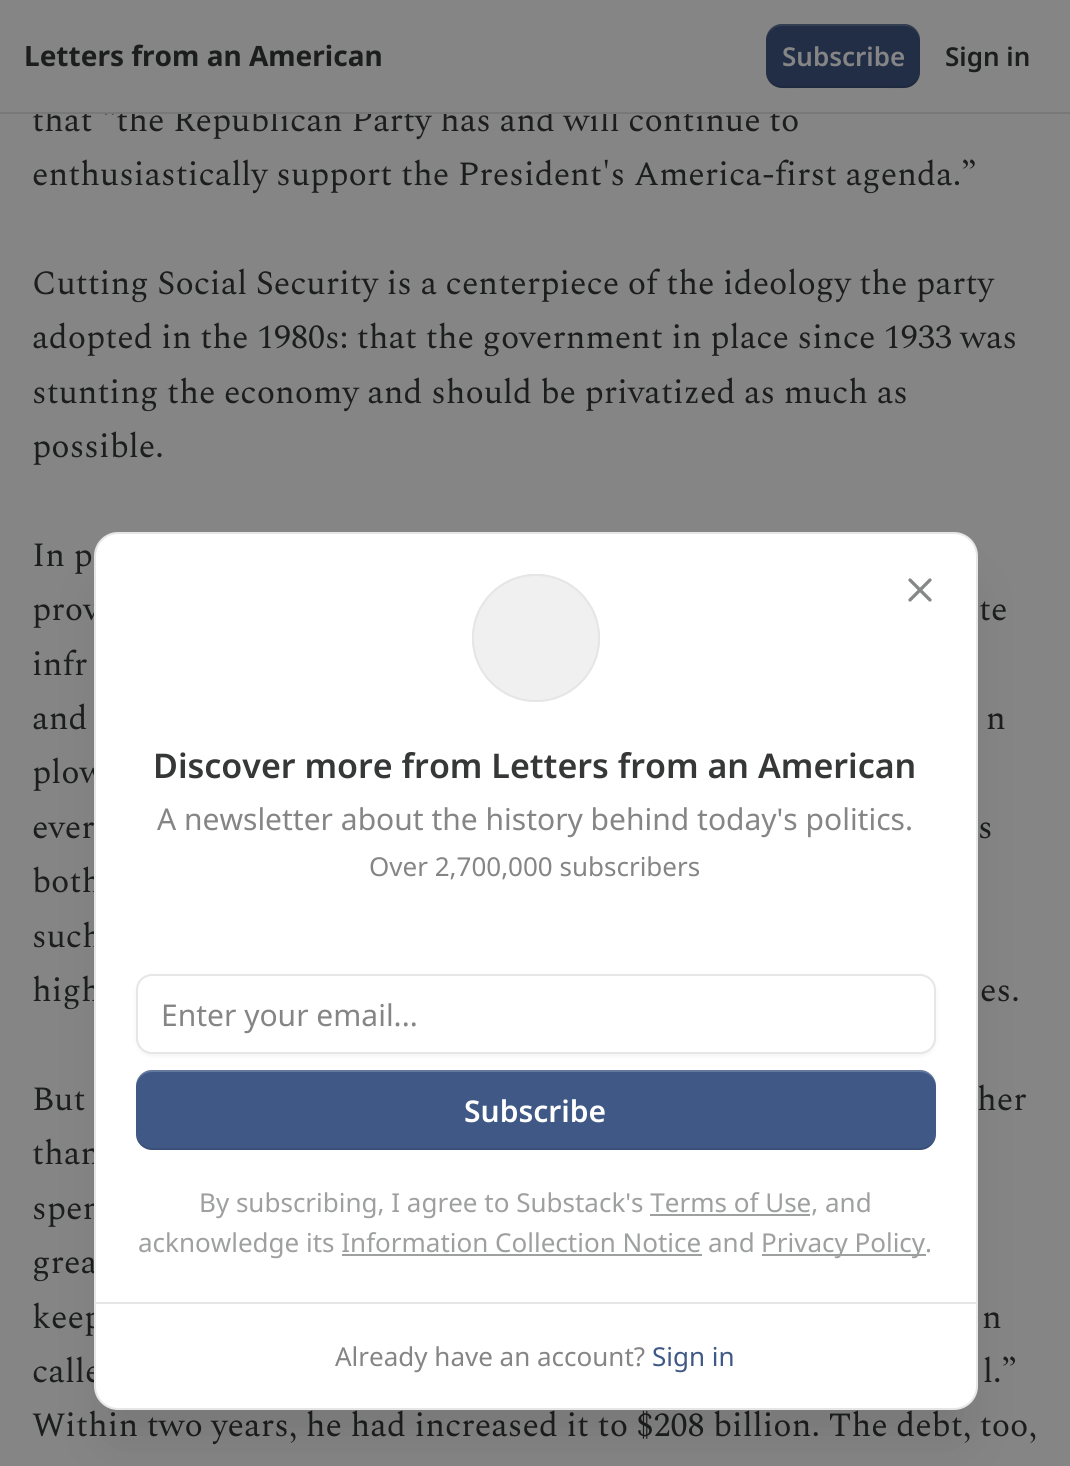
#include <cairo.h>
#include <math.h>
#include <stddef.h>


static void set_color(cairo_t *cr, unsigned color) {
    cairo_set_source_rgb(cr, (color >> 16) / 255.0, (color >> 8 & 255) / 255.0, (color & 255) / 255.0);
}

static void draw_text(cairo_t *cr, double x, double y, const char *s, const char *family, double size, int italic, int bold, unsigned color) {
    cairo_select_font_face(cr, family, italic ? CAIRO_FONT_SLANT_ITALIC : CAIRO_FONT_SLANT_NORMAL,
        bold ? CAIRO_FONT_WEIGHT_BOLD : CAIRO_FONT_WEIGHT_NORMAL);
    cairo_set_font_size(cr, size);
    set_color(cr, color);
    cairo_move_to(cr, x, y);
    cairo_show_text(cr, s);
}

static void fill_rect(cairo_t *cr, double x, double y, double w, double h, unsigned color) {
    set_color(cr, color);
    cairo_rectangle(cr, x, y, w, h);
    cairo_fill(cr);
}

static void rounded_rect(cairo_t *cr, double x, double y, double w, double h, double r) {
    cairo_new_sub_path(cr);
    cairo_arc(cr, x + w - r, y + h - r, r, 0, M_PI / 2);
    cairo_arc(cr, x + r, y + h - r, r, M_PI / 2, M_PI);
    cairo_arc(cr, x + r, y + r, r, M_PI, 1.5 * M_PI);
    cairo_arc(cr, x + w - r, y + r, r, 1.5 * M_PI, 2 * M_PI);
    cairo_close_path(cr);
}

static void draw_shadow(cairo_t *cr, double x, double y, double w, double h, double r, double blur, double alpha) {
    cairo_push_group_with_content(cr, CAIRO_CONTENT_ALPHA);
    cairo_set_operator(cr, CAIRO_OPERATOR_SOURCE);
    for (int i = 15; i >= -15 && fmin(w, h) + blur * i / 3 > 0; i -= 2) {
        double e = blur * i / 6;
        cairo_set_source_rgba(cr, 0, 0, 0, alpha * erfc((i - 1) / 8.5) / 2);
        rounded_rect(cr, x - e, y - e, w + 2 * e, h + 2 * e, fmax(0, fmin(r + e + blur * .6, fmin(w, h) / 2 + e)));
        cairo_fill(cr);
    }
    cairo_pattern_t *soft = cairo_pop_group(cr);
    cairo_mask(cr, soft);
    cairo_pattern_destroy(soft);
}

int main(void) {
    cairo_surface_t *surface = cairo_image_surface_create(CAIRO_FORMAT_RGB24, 1070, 1466);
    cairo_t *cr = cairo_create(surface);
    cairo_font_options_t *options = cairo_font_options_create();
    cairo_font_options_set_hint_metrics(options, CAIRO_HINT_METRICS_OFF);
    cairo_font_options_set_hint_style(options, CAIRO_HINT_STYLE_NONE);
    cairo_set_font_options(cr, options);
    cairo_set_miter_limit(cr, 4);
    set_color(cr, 0x858585);
    cairo_paint(cr);
    draw_text(cr, 32, 131, "that “the Republican Party has and will continue to", "Spectral", 34, 0, 0, 0x1C1D1D);
    fill_rect(cr, 45, 105, 657, 7, 0x858585);
    fill_rect(cr, 0, 112, 1070, 2, 0x787878);
    draw_text(cr, 24, 66, "Letters from an American", "Noto Sans", 28, 0, 1, 0x1C1D1D);
    set_color(cr, 0x212E45);
    rounded_rect(cr, 766, 24, 154, 64, 16);
    cairo_fill(cr);
    cairo_set_source_rgba(cr, 0, 0, 0, 0.1);
    cairo_new_path(cr);
    cairo_move_to(cr, 766, 70);
    cairo_curve_to(cr, 766, 92, 786, 88, 802, 88);
    cairo_line_to(cr, 884, 88);
    cairo_curve_to(cr, 900, 88, 920, 92, 920, 70);
    cairo_curve_to(cr, 920, 79, 913, 86, 904, 86);
    cairo_line_to(cr, 782, 86);
    cairo_curve_to(cr, 773, 86, 766, 79, 766, 70);
    cairo_close_path(cr);
    cairo_fill(cr);
    cairo_set_source_rgba(cr, 0.522, 0.522, 0.522, 0.2);
    cairo_new_path(cr);
    cairo_move_to(cr, 782, 26);
    cairo_line_to(cr, 904, 26);
    cairo_curve_to(cr, 913, 26, 920, 33, 920, 42);
    cairo_curve_to(cr, 920, 20, 900, 24, 884, 24);
    cairo_line_to(cr, 802, 24);
    cairo_curve_to(cr, 786, 24, 766, 20, 766, 42);
    cairo_curve_to(cr, 766, 33, 773, 26, 782, 26);
    cairo_close_path(cr);
    cairo_fill(cr);
    draw_text(cr, 782, 66, "Subscribe", "Noto Sans SemiBold", 26, 0, 0, 0x858585);
    draw_text(cr, 945, 66, "Sign in", "Noto Sans SemiBold", 26, 0, 0, 0x1C1D1D);
    draw_text(cr, 32, 185, "enthusiastically support the President's America-first agenda.”", "Spectral", 34, 0, 0, 0x1C1D1D);
    draw_text(cr, 32, 294, "Cutting Social Security is a centerpiece of the ideology the party", "Spectral", 34, 0, 0, 0x1C1D1D);
    draw_text(cr, 32, 348, "adopted in the 1980s: that the government in place since 1933 was", "Spectral", 34, 0, 0, 0x1C1D1D);
    draw_text(cr, 32, 403, "stunting the economy and should be privatized as much as", "Spectral", 34, 0, 0, 0x1C1D1D);
    draw_text(cr, 32, 457, "possible.", "Spectral", 34, 0, 0, 0x1C1D1D);
    draw_text(cr, 32, 566, "In p", "Spectral", 34, 0, 0, 0x1C1D1D);
    draw_text(cr, 32, 620, "prov", "Spectral", 34, 0, 0, 0x1C1D1D);
    draw_text(cr, 979, 620, "te", "Spectral", 34, 0, 0, 0x1C1D1D);
    draw_text(cr, 32, 675, "infr", "Spectral", 34, 0, 0, 0x1C1D1D);
    draw_text(cr, 32, 729, "and", "Spectral", 34, 0, 0, 0x1C1D1D);
    draw_text(cr, 986, 729, "n", "Spectral", 34, 0, 0, 0x1C1D1D);
    draw_text(cr, 32, 783, "plow", "Spectral", 34, 0, 0, 0x1C1D1D);
    draw_text(cr, 32, 838, "ever", "Spectral", 34, 0, 0, 0x1C1D1D);
    draw_text(cr, 978, 838, "s", "Spectral", 34, 0, 0, 0x1C1D1D);
    draw_text(cr, 32, 892, "both", "Spectral", 34, 0, 0, 0x1C1D1D);
    draw_text(cr, 32, 947, "such", "Spectral", 34, 0, 0, 0x1C1D1D);
    draw_text(cr, 32, 1001, "high", "Spectral", 34, 0, 0, 0x1C1D1D);
    draw_text(cr, 980, 1001, "es.", "Spectral", 34, 0, 0, 0x1C1D1D);
    draw_text(cr, 32, 1110, "But", "Spectral", 34, 0, 0, 0x1C1D1D);
    draw_text(cr, 977, 1110, "her", "Spectral", 34, 0, 0, 0x1C1D1D);
    draw_text(cr, 32, 1164, "than", "Spectral", 34, 0, 0, 0x1C1D1D);
    draw_text(cr, 32, 1219, "spen", "Spectral", 34, 0, 0, 0x1C1D1D);
    draw_text(cr, 32, 1273, "grea", "Spectral", 34, 0, 0, 0x1C1D1D);
    draw_text(cr, 32, 1328, "keep", "Spectral", 34, 0, 0, 0x1C1D1D);
    draw_text(cr, 982, 1328, "n", "Spectral", 34, 0, 0, 0x1C1D1D);
    draw_text(cr, 32, 1382, "calle", "Spectral", 34, 0, 0, 0x1C1D1D);
    draw_text(cr, 983, 1382, "l.”", "Spectral", 34, 0, 0, 0x1C1D1D);
    draw_text(cr, 32, 1436, "Within two years, he had increased it to $208 billion. The debt, too,", "Spectral", 34, 0, 0, 0x1C1D1D);
    set_color(cr, 0x000000);
    draw_shadow(cr, 104, 582, 864, 858, 14, 25, 0.1);
    set_color(cr, 0xFFFFFF);
    rounded_rect(cr, 95, 533, 882, 876, 23);
    cairo_fill_preserve(cr);
    set_color(cr, 0xE6E6E6);
    cairo_stroke(cr);
    cairo_arc(cr, 536, 638, 63, 0, 2 * M_PI);
    cairo_stroke(cr);
    set_color(cr, 0xF0F0F0);
    cairo_arc(cr, 536, 638, 63, 0, 2 * M_PI);
    cairo_fill_preserve(cr);
    set_color(cr, 0xE6E6E6);
    cairo_stroke(cr);
    cairo_new_path(cr);
    cairo_move_to(cr, 930, 580);
    cairo_line_to(cr, 910, 600);
    cairo_move_to(cr, 910, 580);
    cairo_line_to(cr, 930, 600);
    set_color(cr, 0x868787);
    cairo_set_line_width(cr, 3.3);
    cairo_set_line_cap(cr, CAIRO_LINE_CAP_ROUND);
    cairo_set_line_join(cr, CAIRO_LINE_JOIN_ROUND);
    cairo_stroke(cr);
    draw_text(cr, 153, 778, "Discover more from Letters from an American", "Noto Sans SemiBold", 34, 0, 0, 0x363737);
    draw_text(cr, 157, 830, "A newsletter about the history behind today's politics.", "Noto Sans", 30, 0, 0, 0x858585);
    draw_text(cr, 369, 876, "Over 2,700,000 subscribers", "Noto Sans", 26, 0, 0, 0x858585);
    set_color(cr, 0x000000);
    draw_shadow(cr, 136, 976, 800, 80, 16, 2, 0.05);
    set_color(cr, 0xFFFFFF);
    rounded_rect(cr, 137, 975, 798, 78, 15);
    cairo_fill_preserve(cr);
    set_color(cr, 0xE6E6E6);
    cairo_set_line_width(cr, 2);
    cairo_set_line_cap(cr, CAIRO_LINE_CAP_BUTT);
    cairo_set_line_join(cr, CAIRO_LINE_JOIN_MITER);
    cairo_stroke(cr);
    draw_text(cr, 161, 1026, "Enter your email...", "Noto Sans", 30, 0, 0, 0x858585);
    set_color(cr, 0x3F5885);
    rounded_rect(cr, 136, 1070, 800, 80, 16);
    cairo_fill(cr);
    cairo_set_source_rgba(cr, 0, 0, 0, 0.1);
    cairo_new_path(cr);
    cairo_move_to(cr, 136, 1132);
    cairo_line_to(cr, 136, 1134);
    cairo_curve_to(cr, 136, 1143, 143, 1150, 152, 1150);
    cairo_line_to(cr, 920, 1150);
    cairo_curve_to(cr, 929, 1150, 936, 1143, 936, 1134);
    cairo_line_to(cr, 936, 1132);
    cairo_curve_to(cr, 936, 1141, 929, 1148, 920, 1148);
    cairo_line_to(cr, 152, 1148);
    cairo_curve_to(cr, 143, 1148, 136, 1141, 136, 1132);
    cairo_close_path(cr);
    cairo_fill(cr);
    cairo_set_source_rgba(cr, 1, 1, 1, 0.2);
    cairo_new_path(cr);
    cairo_move_to(cr, 152, 1072);
    cairo_line_to(cr, 920, 1072);
    cairo_curve_to(cr, 929, 1072, 936, 1079, 936, 1088);
    cairo_line_to(cr, 936, 1086);
    cairo_curve_to(cr, 936, 1077, 929, 1070, 920, 1070);
    cairo_line_to(cr, 152, 1070);
    cairo_curve_to(cr, 143, 1070, 136, 1077, 136, 1086);
    cairo_line_to(cr, 136, 1088);
    cairo_curve_to(cr, 136, 1079, 143, 1072, 152, 1072);
    cairo_close_path(cr);
    cairo_fill(cr);
    draw_text(cr, 464, 1122, "Subscribe", "Noto Sans SemiBold", 30, 0, 0, 0xFFFFFF);
    draw_text(cr, 199, 1212, "By subscribing, I agree to Substack's Terms of Use, and", "Noto Sans", 26, 0, 0, 0x9E9F9F);
    fill_rect(cr, 650, 1214, 160, 2, 0x9E9F9F);
    draw_text(cr, 138, 1252, "acknowledge its Information Collection Notice and", "Noto Sans", 26, 0, 0, 0x9E9F9F);
    fill_rect(cr, 762, 1254, 164, 2, 0x9E9F9F);
    draw_text(cr, 761, 1252, "Privacy Policy.", "Noto Sans", 26, 0, 0, 0x9E9F9F);
    fill_rect(cr, 342, 1254, 360, 2, 0x9E9F9F);
    fill_rect(cr, 96, 1302, 880, 2, 0xE6E6E6);
    draw_text(cr, 335, 1366, "Already have an account?", "Noto Sans", 26, 0, 0, 0x858585);
    draw_text(cr, 652, 1366, "Sign in", "Noto Sans", 26, 0, 0, 0x3F5885);
    cairo_surface_write_to_png(surface, "output.png");
    cairo_font_options_destroy(options);
    cairo_destroy(cr);
    cairo_surface_destroy(surface);
    return 0;
}
